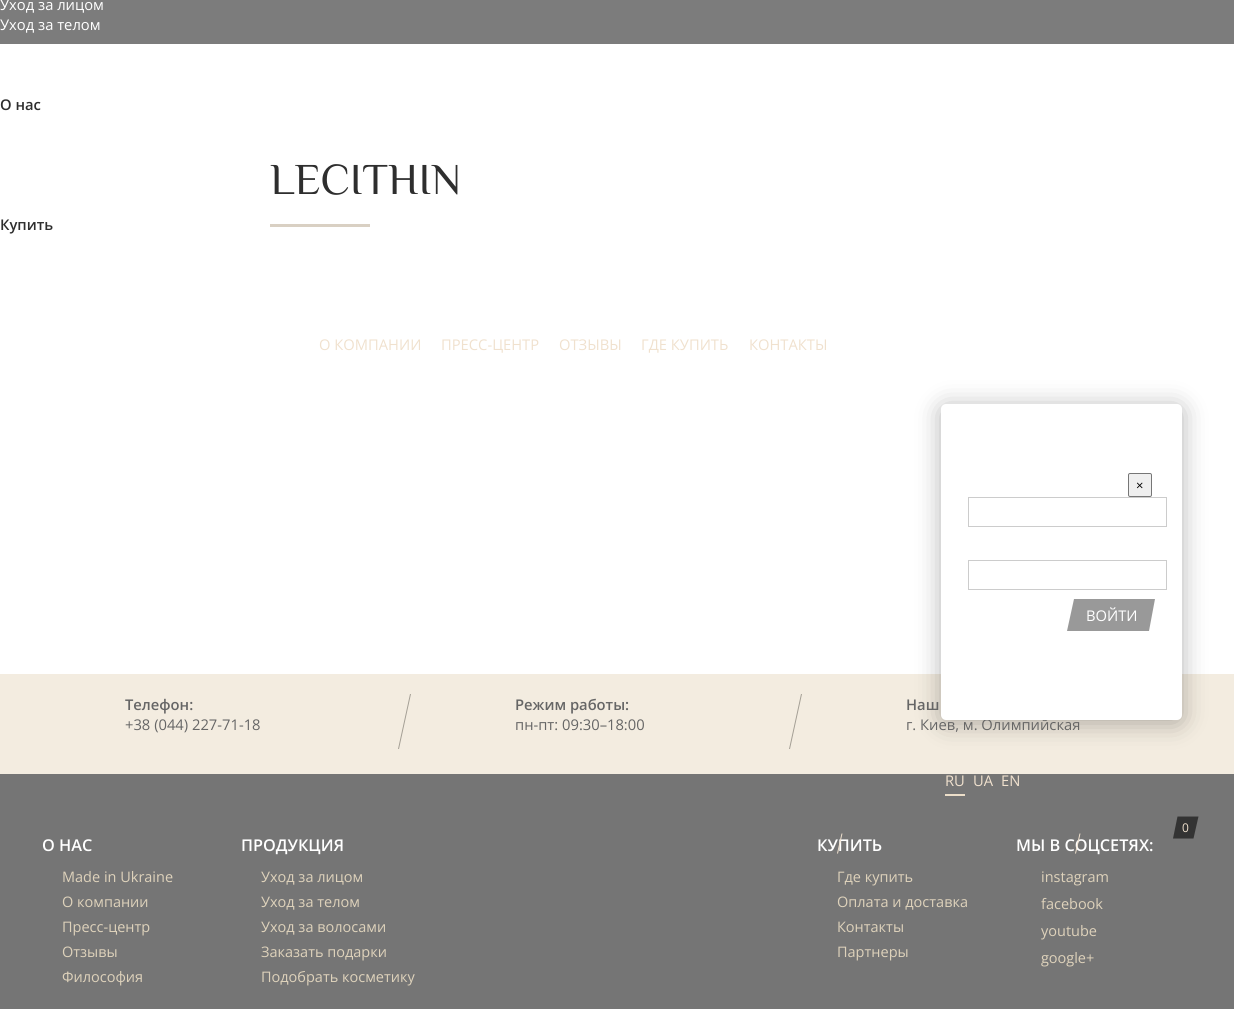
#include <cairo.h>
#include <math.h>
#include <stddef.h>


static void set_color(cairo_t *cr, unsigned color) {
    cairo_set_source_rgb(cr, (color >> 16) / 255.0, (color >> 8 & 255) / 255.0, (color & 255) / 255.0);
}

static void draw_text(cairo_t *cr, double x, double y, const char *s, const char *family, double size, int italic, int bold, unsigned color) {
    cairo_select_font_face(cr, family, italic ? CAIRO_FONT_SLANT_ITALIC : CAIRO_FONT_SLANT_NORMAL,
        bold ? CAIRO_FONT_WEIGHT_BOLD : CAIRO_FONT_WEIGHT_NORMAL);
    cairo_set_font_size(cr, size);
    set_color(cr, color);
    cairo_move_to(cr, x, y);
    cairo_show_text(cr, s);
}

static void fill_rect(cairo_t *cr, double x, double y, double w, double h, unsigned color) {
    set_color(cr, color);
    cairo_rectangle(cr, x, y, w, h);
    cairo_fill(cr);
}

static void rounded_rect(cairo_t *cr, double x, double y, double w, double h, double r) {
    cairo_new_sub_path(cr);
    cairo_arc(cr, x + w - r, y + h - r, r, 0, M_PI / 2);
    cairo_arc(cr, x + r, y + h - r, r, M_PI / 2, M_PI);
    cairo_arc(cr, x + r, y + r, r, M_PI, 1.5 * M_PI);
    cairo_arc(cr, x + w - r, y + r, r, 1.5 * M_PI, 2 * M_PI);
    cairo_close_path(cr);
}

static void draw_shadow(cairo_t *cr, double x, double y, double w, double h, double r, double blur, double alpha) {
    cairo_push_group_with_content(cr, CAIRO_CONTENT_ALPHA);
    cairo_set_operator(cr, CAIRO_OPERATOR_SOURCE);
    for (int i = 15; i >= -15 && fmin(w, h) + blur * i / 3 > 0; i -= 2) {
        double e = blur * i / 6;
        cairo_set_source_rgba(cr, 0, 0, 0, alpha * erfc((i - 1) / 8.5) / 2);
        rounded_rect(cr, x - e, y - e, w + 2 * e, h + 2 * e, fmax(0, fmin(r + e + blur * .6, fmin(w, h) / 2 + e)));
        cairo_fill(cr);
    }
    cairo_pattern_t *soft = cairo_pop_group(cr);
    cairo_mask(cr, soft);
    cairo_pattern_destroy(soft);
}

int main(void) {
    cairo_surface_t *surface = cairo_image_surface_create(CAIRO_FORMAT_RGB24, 1234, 1009);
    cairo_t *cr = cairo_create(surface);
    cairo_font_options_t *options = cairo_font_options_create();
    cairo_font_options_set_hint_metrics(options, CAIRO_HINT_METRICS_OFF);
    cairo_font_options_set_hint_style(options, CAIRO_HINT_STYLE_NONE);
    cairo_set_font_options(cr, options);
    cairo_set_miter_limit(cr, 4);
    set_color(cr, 0xFFFFFF);
    cairo_paint(cr);
    fill_rect(cr, 0, 0, 1234, 44, 0x7C7C7C);
    draw_text(cr, 0, 10, "Уход за лицом", "Open Sans", 14.75, 0, 0, 0xFFFFFF);
    draw_text(cr, 0, 30, "Уход за телом", "Open Sans", 14.75, 0, 0, 0xFFFFFF);
    draw_text(cr, 0, 110, "О нас", "Open Sans SemiBold", 14.75, 0, 0, 0x2E2E2E);
    draw_text(cr, 0, 230, "Купить", "Open Sans SemiBold", 14.75, 0, 0, 0x2E2E2E);
    draw_text(cr, 319, 350, "О КОМПАНИИ", "Open Sans", 14.75, 0, 0, 0xF0E1CE);
    draw_text(cr, 441, 350, "ПРЕСС-ЦЕНТР", "Open Sans", 14.75, 0, 0, 0xF0E1CE);
    draw_text(cr, 559, 350, "ОТЗЫВЫ", "Open Sans", 14.75, 0, 0, 0xF0E1CE);
    draw_text(cr, 641, 350, "ГДЕ КУПИТЬ", "Open Sans", 14.75, 0, 0, 0xF0E1CE);
    draw_text(cr, 749, 350, "КОНТАКТЫ", "Open Sans", 14.75, 0, 0, 0xF0E1CE);
    fill_rect(cr, 0, 674, 1234, 100, 0xF3ECE0);
    set_color(cr, 0x000000);
    draw_shadow(cr, 941, 407, 241, 316, 5, 12.5, 0.3);
    draw_text(cr, 906, 730, "г. Киев, м. Олимпийская", "Open Sans", 14.75, 0, 0, 0x666666);
    set_color(cr, 0xFFFFFF);
    rounded_rect(cr, 941, 404, 241, 316, 5);
    cairo_fill(cr);
    set_color(cr, 0xEFEFEF);
    rounded_rect(cr, 1128.5, 473.5, 23, 23, 1.5);
    cairo_fill_preserve(cr);
    set_color(cr, 0x767676);
    cairo_set_line_width(cr, 1);
    cairo_stroke(cr);
    draw_text(cr, 1136, 490, "×", "Open Sans", 13, 0, 0, 0x000000);
    cairo_rectangle(cr, 968.5, 497.5, 198, 29);
    set_color(cr, 0xCCCCCC);
    cairo_stroke(cr);
    cairo_rectangle(cr, 968.5, 560.5, 198, 29);
    cairo_stroke(cr);
    set_color(cr, 0x999999);
    cairo_new_path(cr);
    cairo_move_to(cr, 1074, 599);
    cairo_line_to(cr, 1155, 599);
    cairo_line_to(cr, 1149, 631);
    cairo_line_to(cr, 1067, 631);
    cairo_close_path(cr);
    cairo_fill(cr);
    draw_text(cr, 1086, 621, "ВОЙТИ", "Open Sans", 14.75, 0, 0, 0xFFFFFF);
    fill_rect(cr, 0, 774, 1234, 235, 0x757575);
    draw_text(cr, 945, 786, "RU", "Open Sans", 14.75, 0, 0, 0xF0E1CE);
    fill_rect(cr, 945, 794, 20, 2, 0xECDEC9);
    draw_text(cr, 973, 786, "UA", "Open Sans", 14.75, 0, 0, 0xF0E1CE);
    draw_text(cr, 1001, 786, "EN", "Open Sans", 14.75, 0, 0, 0xF0E1CE);
    set_color(cr, 0x333333);
    cairo_new_path(cr);
    cairo_move_to(cr, 1177.5, 816.5);
    cairo_line_to(cr, 1198.5, 816.5);
    cairo_line_to(cr, 1193.5, 838.5);
    cairo_line_to(cr, 1173, 838.5);
    cairo_close_path(cr);
    cairo_fill(cr);
    draw_text(cr, 1182, 832, "0", "Open Sans", 12, 0, 0, 0xF0E1CE);
    draw_text(cr, 817, 851, "КУПИТЬ", "Open Sans SemiBold", 16.25, 0, 0, 0xFFFFFF);
    set_color(cr, 0xF0E1CE);
    cairo_new_path(cr);
    cairo_move_to(cr, 841.5, 833.5);
    cairo_line_to(cr, 842.5, 833.5);
    cairo_line_to(cr, 838, 853.5);
    cairo_line_to(cr, 837, 853.5);
    cairo_close_path(cr);
    cairo_fill(cr);
    draw_text(cr, 1016, 851, "МЫ В СОЦСЕТЯХ:", "Open Sans SemiBold", 16.25, 0, 0, 0xFFFFFF);
    set_color(cr, 0xF0E1CE);
    cairo_new_path(cr);
    cairo_move_to(cr, 1079.5, 833.5);
    cairo_line_to(cr, 1080.5, 833.5);
    cairo_line_to(cr, 1076, 853.5);
    cairo_line_to(cr, 1075, 853.5);
    cairo_close_path(cr);
    cairo_fill(cr);
    draw_text(cr, 270, 194, "LECITHIN", "Philosopher", 44, 0, 0, 0x2E2E2E);
    fill_rect(cr, 270, 224, 100, 3, 0xD9D0C3);
    draw_text(cr, 125, 710, "Телефон:", "Open Sans SemiBold", 14.75, 0, 0, 0x666666);
    draw_text(cr, 125, 730, "+38 (044) 227-71-18", "Open Sans", 14.75, 0, 0, 0x666666);
    set_color(cr, 0xA39E94);
    cairo_new_path(cr);
    cairo_move_to(cr, 410, 694);
    cairo_line_to(cr, 411, 694);
    cairo_line_to(cr, 399, 749);
    cairo_line_to(cr, 398, 749);
    cairo_close_path(cr);
    cairo_fill(cr);
    draw_text(cr, 515, 710, "Режим работы:", "Open Sans SemiBold", 14.75, 0, 0, 0x666666);
    draw_text(cr, 515, 730, "пн-пт: 09:30–18:00", "Open Sans", 14.75, 0, 0, 0x666666);
    set_color(cr, 0xA39E94);
    cairo_new_path(cr);
    cairo_move_to(cr, 801, 694);
    cairo_line_to(cr, 802, 694);
    cairo_line_to(cr, 790, 749);
    cairo_line_to(cr, 789, 749);
    cairo_close_path(cr);
    cairo_fill(cr);
    draw_text(cr, 906, 710, "Наш", "Open Sans SemiBold", 14.75, 0, 0, 0x666666);
    draw_text(cr, 42, 851, "О НАС", "Open Sans SemiBold", 16.25, 0, 0, 0xFFFFFF);
    draw_text(cr, 62, 882, "Made in Ukraine", "Open Sans", 14.5, 0, 0, 0xDED2BB);
    draw_text(cr, 62, 907, "О компании", "Open Sans", 14.5, 0, 0, 0xDED2BB);
    draw_text(cr, 62, 932, "Пресс-центр", "Open Sans", 14.5, 0, 0, 0xDED2BB);
    draw_text(cr, 62, 957, "Отзывы", "Open Sans", 14.5, 0, 0, 0xDED2BB);
    draw_text(cr, 62, 982, "Философия", "Open Sans", 14.5, 0, 0, 0xDED2BB);
    draw_text(cr, 241, 851, "ПРОДУКЦИЯ", "Open Sans SemiBold", 16.25, 0, 0, 0xFFFFFF);
    draw_text(cr, 261, 882, "Уход за лицом", "Open Sans", 14.5, 0, 0, 0xDED2BB);
    draw_text(cr, 261, 907, "Уход за телом", "Open Sans", 14.5, 0, 0, 0xDED2BB);
    draw_text(cr, 261, 932, "Уход за волосами", "Open Sans", 14.5, 0, 0, 0xDED2BB);
    draw_text(cr, 261, 957, "Заказать подарки", "Open Sans", 14.5, 0, 0, 0xDED2BB);
    draw_text(cr, 261, 982, "Подобрать косметику", "Open Sans", 14.5, 0, 0, 0xDED2BB);
    draw_text(cr, 837, 882, "Где купить", "Open Sans", 14.5, 0, 0, 0xDED2BB);
    draw_text(cr, 837, 907, "Оплата и доставка", "Open Sans", 14.5, 0, 0, 0xDED2BB);
    draw_text(cr, 837, 932, "Контакты", "Open Sans", 14.5, 0, 0, 0xDED2BB);
    draw_text(cr, 837, 957, "Партнеры", "Open Sans", 14.5, 0, 0, 0xDED2BB);
    draw_text(cr, 1041, 882, "instagram", "Open Sans", 14.5, 0, 0, 0xDED2BB);
    draw_text(cr, 1041, 909, "facebook", "Open Sans", 14.5, 0, 0, 0xDED2BB);
    draw_text(cr, 1041, 936, "youtube", "Open Sans", 14.5, 0, 0, 0xDED2BB);
    draw_text(cr, 1041, 963, "google+", "Open Sans", 14.5, 0, 0, 0xDED2BB);
    cairo_surface_write_to_png(surface, "output.png");
    cairo_font_options_destroy(options);
    cairo_destroy(cr);
    cairo_surface_destroy(surface);
    return 0;
}
